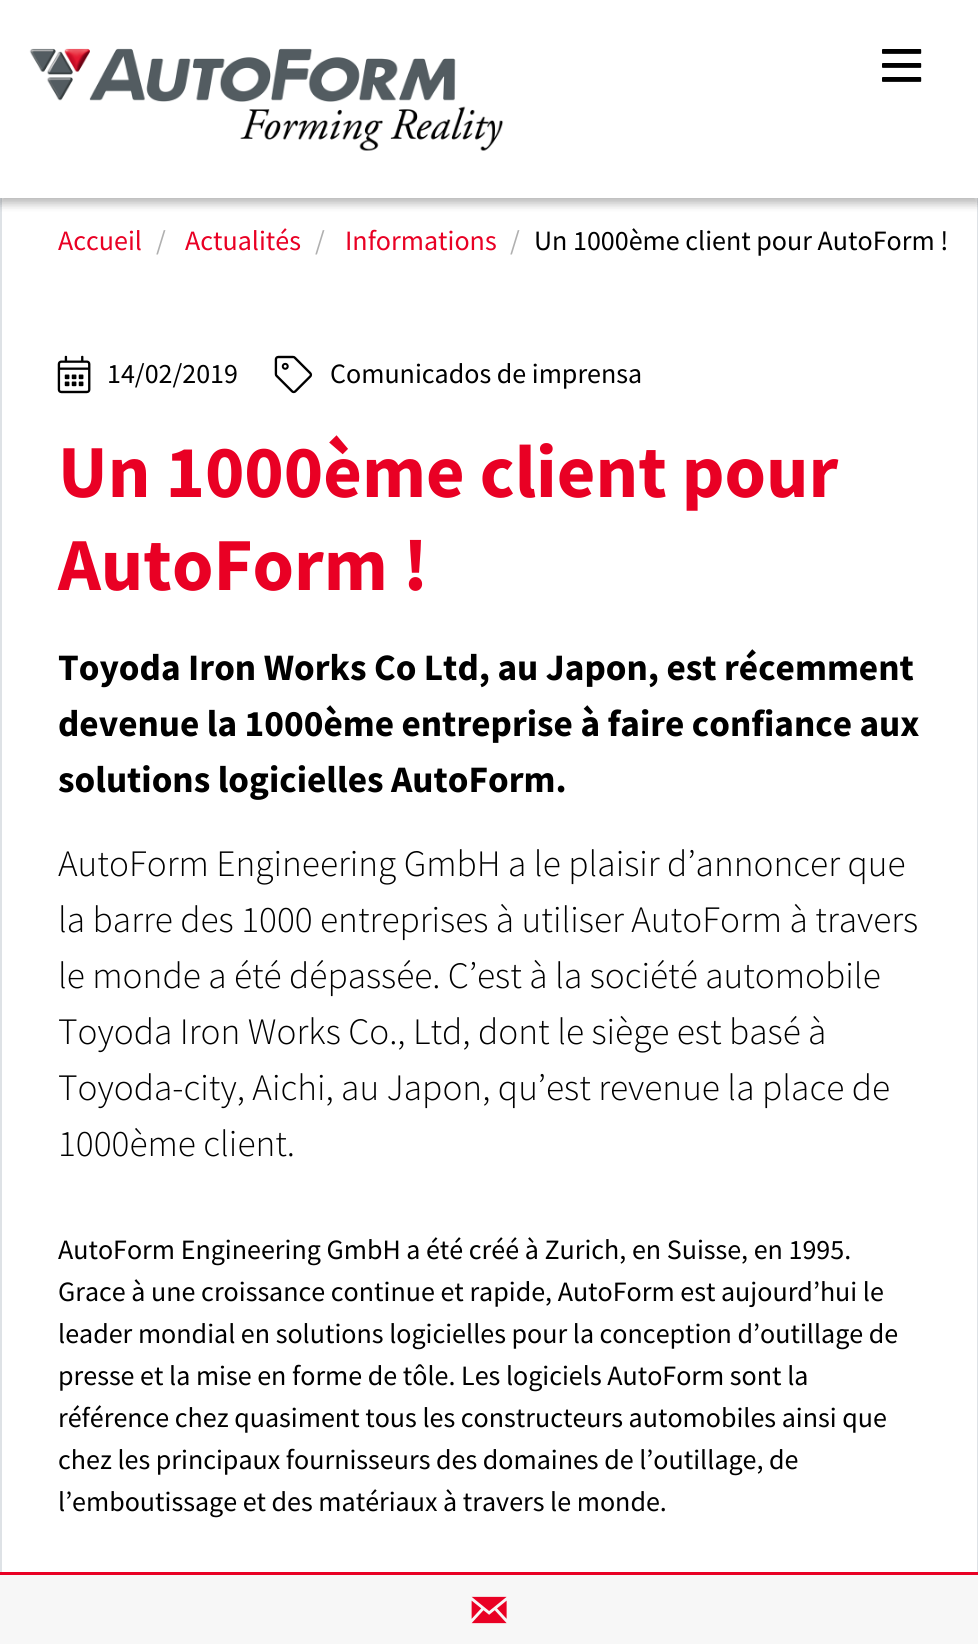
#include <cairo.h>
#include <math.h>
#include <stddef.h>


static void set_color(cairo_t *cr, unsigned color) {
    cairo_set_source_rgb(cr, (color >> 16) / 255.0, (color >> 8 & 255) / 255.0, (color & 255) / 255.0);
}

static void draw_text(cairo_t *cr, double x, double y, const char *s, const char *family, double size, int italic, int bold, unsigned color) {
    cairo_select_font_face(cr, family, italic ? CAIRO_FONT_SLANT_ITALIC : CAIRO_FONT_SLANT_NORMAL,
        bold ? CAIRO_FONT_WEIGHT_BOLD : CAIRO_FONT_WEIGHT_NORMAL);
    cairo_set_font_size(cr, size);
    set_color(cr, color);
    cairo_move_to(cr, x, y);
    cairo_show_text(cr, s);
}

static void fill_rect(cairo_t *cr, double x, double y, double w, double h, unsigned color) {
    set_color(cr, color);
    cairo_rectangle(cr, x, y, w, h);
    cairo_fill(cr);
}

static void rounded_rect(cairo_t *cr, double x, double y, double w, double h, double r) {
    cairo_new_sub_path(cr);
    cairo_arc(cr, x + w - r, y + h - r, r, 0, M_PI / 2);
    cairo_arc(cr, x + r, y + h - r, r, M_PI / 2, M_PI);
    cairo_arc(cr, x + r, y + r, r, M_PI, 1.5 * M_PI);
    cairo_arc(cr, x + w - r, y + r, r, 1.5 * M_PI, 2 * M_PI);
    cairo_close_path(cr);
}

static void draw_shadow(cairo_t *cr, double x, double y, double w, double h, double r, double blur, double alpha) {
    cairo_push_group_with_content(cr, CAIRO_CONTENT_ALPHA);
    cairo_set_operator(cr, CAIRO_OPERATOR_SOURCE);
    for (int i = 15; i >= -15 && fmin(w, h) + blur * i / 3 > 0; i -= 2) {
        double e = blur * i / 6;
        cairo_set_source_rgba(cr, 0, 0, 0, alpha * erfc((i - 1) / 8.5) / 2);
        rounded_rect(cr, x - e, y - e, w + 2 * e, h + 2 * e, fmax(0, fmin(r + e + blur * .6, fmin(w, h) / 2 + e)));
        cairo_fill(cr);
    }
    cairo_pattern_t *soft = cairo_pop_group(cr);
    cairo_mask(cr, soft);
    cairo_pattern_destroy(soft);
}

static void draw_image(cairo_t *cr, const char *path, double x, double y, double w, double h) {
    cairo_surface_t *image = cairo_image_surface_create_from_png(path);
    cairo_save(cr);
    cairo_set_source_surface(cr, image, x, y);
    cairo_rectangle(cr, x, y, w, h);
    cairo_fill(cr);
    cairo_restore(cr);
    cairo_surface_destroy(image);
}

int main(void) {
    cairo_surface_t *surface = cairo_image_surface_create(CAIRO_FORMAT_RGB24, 978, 1644);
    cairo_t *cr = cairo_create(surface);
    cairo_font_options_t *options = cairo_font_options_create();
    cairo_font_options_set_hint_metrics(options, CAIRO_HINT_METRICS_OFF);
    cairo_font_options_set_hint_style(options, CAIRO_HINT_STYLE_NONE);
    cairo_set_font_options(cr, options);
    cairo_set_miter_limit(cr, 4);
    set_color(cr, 0xFFFFFF);
    cairo_paint(cr);
    fill_rect(cr, 977, 198, 1, 1374, 0xDEE2E6);
    fill_rect(cr, 0, 198, 2, 1374, 0xDEE2E6);
    set_color(cr, 0x000000);
    draw_shadow(cr, 0, 5, 978, 198, 0, 5, 0.16);
    draw_shadow(cr, 0, 5, 978, 198, 0, 5, 0.16);
    fill_rect(cr, 0, 0, 978, 198, 0xFFFFFF);
    draw_image(cr, "assets/img1.png", 29, 48, 475, 103);
    draw_image(cr, "assets/img2.png", 882, 49, 40, 33);
    draw_text(cr, 58, 250, "Accueil", "Source Sans Pro", 28, 0, 0, 0xE90024);
    draw_text(cr, 156, 250, "/", "Source Sans Pro", 28, 0, 0, 0xB0B0B0);
    draw_text(cr, 185, 250, "Actualités", "Source Sans Pro", 28, 0, 0, 0xE90024);
    draw_text(cr, 315, 250, "/", "Source Sans Pro", 28, 0, 0, 0xB0B0B0);
    draw_text(cr, 345, 250, "Informations", "Source Sans Pro", 28, 0, 0, 0xE90024);
    draw_text(cr, 510, 250, "/", "Source Sans Pro", 28, 0, 0, 0xB0B0B0);
    draw_text(cr, 534, 250, "Un 1000ème client pour AutoForm !", "Source Sans Pro", 28, 0, 0, 0x000000);
    draw_image(cr, "assets/img3.png", 57, 355, 34, 39);
    draw_text(cr, 107, 383, "14/02/2019", "Source Sans Pro", 28, 0, 0, 0x000000);
    draw_image(cr, "assets/img4.png", 274, 355, 39, 39);
    draw_text(cr, 330, 383, "Comunicados de imprensa", "Source Sans Pro", 28, 0, 0, 0x000000);
    draw_text(cr, 58, 497, "Un 1000ème client pour", "Source Sans Pro", 74.75, 0, 1, 0xE90024);
    draw_text(cr, 58, 590, "AutoForm !", "Source Sans Pro", 74.75, 0, 1, 0xE90024);
    draw_text(cr, 58, 680, "Toyoda Iron Works Co Ltd, au Japon, est récemment", "Source Sans Pro", 37.3, 0, 1, 0x000000);
    draw_text(cr, 58, 736, "devenue la 1000ème entreprise à faire confiance aux", "Source Sans Pro", 37.3, 0, 1, 0x000000);
    draw_text(cr, 58, 792, "solutions logicielles AutoForm.", "Source Sans Pro", 37.3, 0, 1, 0x000000);
    draw_text(cr, 58, 876, "AutoForm Engineering GmbH a le plaisir d’annoncer que", "Source Sans Pro Light", 37.3, 0, 0, 0x000000);
    draw_text(cr, 58, 932, "la barre des 1000 entreprises à utiliser AutoForm à travers", "Source Sans Pro Light", 37.3, 0, 0, 0x000000);
    draw_text(cr, 58, 988, "le monde a été dépassée. C’est à la société automobile", "Source Sans Pro Light", 37.3, 0, 0, 0x000000);
    draw_text(cr, 58, 1044, "Toyoda Iron Works Co., Ltd, dont le siège est basé à", "Source Sans Pro Light", 37.3, 0, 0, 0x000000);
    draw_text(cr, 58, 1100, "Toyoda-city, Aichi, au Japon, qu’est revenue la place de", "Source Sans Pro Light", 37.3, 0, 0, 0x000000);
    draw_text(cr, 58, 1156, "1000ème client.", "Source Sans Pro Light", 37.3, 0, 0, 0x000000);
    draw_text(cr, 58, 1259, "AutoForm Engineering GmbH a été créé à Zurich, en Suisse, en 1995.", "Source Sans Pro", 28, 0, 0, 0x000000);
    draw_text(cr, 58, 1301, "Grace à une croissance continue et rapide, AutoForm est aujourd’hui le", "Source Sans Pro", 28, 0, 0, 0x000000);
    draw_text(cr, 58, 1343, "leader mondial en solutions logicielles pour la conception d’outillage de", "Source Sans Pro", 28, 0, 0, 0x000000);
    draw_text(cr, 58, 1385, "presse et la mise en forme de tôle. Les logiciels AutoForm sont la", "Source Sans Pro", 28, 0, 0, 0x000000);
    draw_text(cr, 58, 1427, "référence chez quasiment tous les constructeurs automobiles ainsi que", "Source Sans Pro", 28, 0, 0, 0x000000);
    draw_text(cr, 58, 1469, "chez les principaux fournisseurs des domaines de l’outillage, de", "Source Sans Pro", 28, 0, 0, 0x000000);
    draw_text(cr, 58, 1511, "l’emboutissage et des matériaux à travers le monde.", "Source Sans Pro", 28, 0, 0, 0x000000);
    fill_rect(cr, 0, 1572, 978, 3, 0xE90024);
    fill_rect(cr, 0, 1575, 978, 69, 0xF7F7F7);
    draw_image(cr, "assets/img5.png", 471, 1596, 36, 28);
    cairo_surface_write_to_png(surface, "output.png");
    cairo_font_options_destroy(options);
    cairo_destroy(cr);
    cairo_surface_destroy(surface);
    return 0;
}
